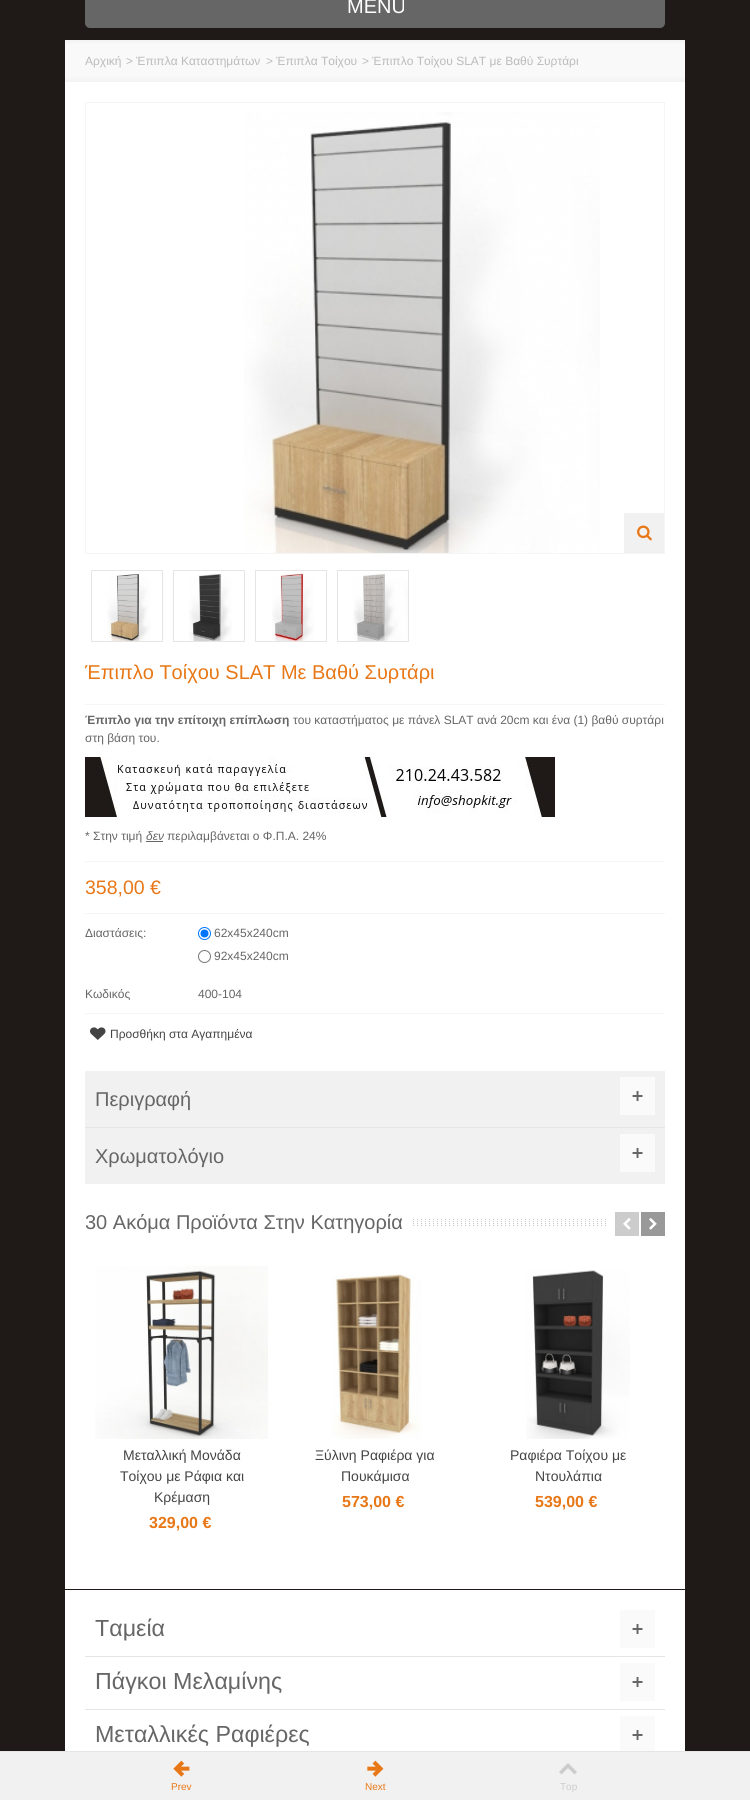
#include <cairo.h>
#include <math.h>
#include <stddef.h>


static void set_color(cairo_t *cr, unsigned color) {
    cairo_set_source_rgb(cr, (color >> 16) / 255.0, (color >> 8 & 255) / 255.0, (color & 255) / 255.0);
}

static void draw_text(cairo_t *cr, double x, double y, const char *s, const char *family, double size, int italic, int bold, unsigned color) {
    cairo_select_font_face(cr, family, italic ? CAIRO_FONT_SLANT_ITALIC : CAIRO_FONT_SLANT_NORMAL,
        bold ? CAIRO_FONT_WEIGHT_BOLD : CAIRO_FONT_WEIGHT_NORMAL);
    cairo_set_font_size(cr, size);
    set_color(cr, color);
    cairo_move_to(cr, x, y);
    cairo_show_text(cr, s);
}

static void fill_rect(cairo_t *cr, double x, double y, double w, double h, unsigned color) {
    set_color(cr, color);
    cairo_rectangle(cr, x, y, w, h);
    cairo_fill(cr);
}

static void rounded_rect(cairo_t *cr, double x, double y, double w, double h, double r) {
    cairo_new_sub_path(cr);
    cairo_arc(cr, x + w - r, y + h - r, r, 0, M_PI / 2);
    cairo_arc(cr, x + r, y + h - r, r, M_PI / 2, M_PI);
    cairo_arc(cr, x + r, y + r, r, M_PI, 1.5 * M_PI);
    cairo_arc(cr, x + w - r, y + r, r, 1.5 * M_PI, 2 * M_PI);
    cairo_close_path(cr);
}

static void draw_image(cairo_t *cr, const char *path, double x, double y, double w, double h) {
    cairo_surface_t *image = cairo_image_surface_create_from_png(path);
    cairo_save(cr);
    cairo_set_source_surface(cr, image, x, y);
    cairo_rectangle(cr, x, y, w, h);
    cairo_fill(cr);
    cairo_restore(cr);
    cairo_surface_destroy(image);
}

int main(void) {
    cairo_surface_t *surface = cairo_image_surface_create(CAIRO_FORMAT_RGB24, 750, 1800);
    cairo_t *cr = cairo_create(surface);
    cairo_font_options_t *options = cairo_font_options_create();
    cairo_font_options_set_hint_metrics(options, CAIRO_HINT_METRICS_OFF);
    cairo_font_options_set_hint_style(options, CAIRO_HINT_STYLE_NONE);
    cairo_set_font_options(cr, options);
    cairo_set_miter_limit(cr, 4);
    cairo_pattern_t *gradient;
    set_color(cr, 0x1F1A17);
    cairo_paint(cr);
    set_color(cr, 0x666666);
    rounded_rect(cr, 85, -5, 580, 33, 5);
    cairo_fill(cr);
    draw_text(cr, 347, 13, "MENU", "Liberation Sans", 20, 0, 0, 0xFFFFFF);
    gradient = cairo_pattern_create_linear(375, 40, 375, 82);
    cairo_pattern_add_color_stop_rgba(gradient, 0, 0.949, 0.949, 0.949, 1);
    cairo_pattern_add_color_stop_rgba(gradient, 0.1, 0.976, 0.976, 0.976, 1);
    cairo_pattern_add_color_stop_rgba(gradient, 0.85, 0.976, 0.976, 0.976, 1);
    cairo_pattern_add_color_stop_rgba(gradient, 1, 0.949, 0.949, 0.949, 1);
    cairo_set_source(cr, gradient);
    cairo_pattern_destroy(gradient);
    cairo_rectangle(cr, 65, 40, 620, 42);
    cairo_fill(cr);
    draw_text(cr, 85, 65, "Αρχική", "Liberation Sans", 12, 0, 0, 0xBBBBBB);
    draw_text(cr, 126, 65, ">", "Liberation Sans", 12, 0, 0, 0xBBBBBB);
    draw_text(cr, 136, 65, "Έπιπλα Καταστημάτων", "Liberation Sans", 12, 0, 0, 0xBBBBBB);
    draw_text(cr, 266, 65, ">", "Liberation Sans", 12, 0, 0, 0xBBBBBB);
    draw_text(cr, 276, 65, "Έπιπλα Τοίχου", "Liberation Sans", 12, 0, 0, 0xBBBBBB);
    draw_text(cr, 362, 65, ">", "Liberation Sans", 12, 0, 0, 0xBBBBBB);
    draw_text(cr, 372, 65, "Έπιπλο Τοίχου SLAT με Βαθύ Συρτάρι", "Liberation Sans", 12, 0, 0, 0xBBBBBB);
    fill_rect(cr, 65, 82, 620, 1507, 0xFFFFFF);
    cairo_rectangle(cr, 85.5, 102.5, 579, 451);
    set_color(cr, 0xF5F5F5);
    cairo_set_line_width(cr, 1);
    cairo_stroke(cr);
    draw_image(cr, "assets/img1.png", 244, 112, 356, 441);
    fill_rect(cr, 624, 513, 40, 40, 0xF1F1F1);
    draw_image(cr, "assets/img2.png", 637, 525, 15, 16);
    cairo_rectangle(cr, 91.5, 570.5, 71, 71);
    set_color(cr, 0xE5E5E5);
    cairo_stroke(cr);
    draw_image(cr, "assets/img3.png", 107, 574, 44, 67);
    cairo_rectangle(cr, 173.5, 570.5, 71, 71);
    cairo_stroke(cr);
    draw_image(cr, "assets/img4.png", 189, 574, 43, 67);
    cairo_rectangle(cr, 255.5, 570.5, 71, 71);
    cairo_stroke(cr);
    draw_image(cr, "assets/img5.png", 272, 572, 42, 69);
    cairo_rectangle(cr, 337.5, 570.5, 71, 71);
    cairo_stroke(cr);
    draw_image(cr, "assets/img6.png", 353, 572, 55, 69);
    draw_text(cr, 85, 679, "Έπιπλο Τοίχου SLAT Με Βαθύ Συρτάρι", "Liberation Sans", 20, 0, 0, 0xE87817);
    fill_rect(cr, 85, 704, 580, 1, 0xF5F5F5);
    fill_rect(cr, 85, 861, 580, 1, 0xF5F5F5);
    draw_text(cr, 85, 724, "Έπιπλο για την επίτοιχη επίπλωση", "Liberation Sans", 12, 0, 1, 0x666666);
    draw_text(cr, 293, 724, "του καταστήματος με πάνελ SLAT ανά 20cm και ένα (1) βαθύ συρτάρι", "Liberation Sans", 12, 0, 0, 0x666666);
    draw_text(cr, 85, 742, "στη βάση του.", "Liberation Sans", 12, 0, 0, 0x666666);
    draw_image(cr, "assets/img7.png", 85, 757, 470, 60);
    draw_text(cr, 85, 840, "* Στην τιμή", "Liberation Sans", 12, 0, 0, 0x666666);
    draw_text(cr, 146, 840, "δεν", "Liberation Sans", 12, 1, 0, 0x666666);
    fill_rect(cr, 146, 841, 17, 1, 0x666666);
    draw_text(cr, 167, 840, "περιλαμβάνεται ο Φ.Π.Α. 24%", "Liberation Sans", 12, 0, 0, 0x666666);
    draw_text(cr, 85, 894, "358,00 €", "Liberation Sans", 19.5, 0, 0, 0xE87817);
    fill_rect(cr, 85, 913, 580, 1, 0xF5F5F5);
    draw_text(cr, 85, 937, "Διαστάσεις:", "Liberation Sans", 12, 0, 0, 0x666666);
    cairo_new_path(cr);
    cairo_arc(cr, 204.5, 933.5, 6, 0, 2 * M_PI);
    set_color(cr, 0x0075FF);
    cairo_stroke(cr);
    cairo_arc(cr, 204.5, 933.5, 4, 0, 2 * M_PI);
    cairo_fill(cr);
    draw_text(cr, 214, 937, "62x45x240cm", "Liberation Sans", 12, 0, 0, 0x666666);
    cairo_new_path(cr);
    cairo_arc(cr, 204.5, 956.5, 6, 0, 2 * M_PI);
    set_color(cr, 0x767676);
    cairo_stroke(cr);
    draw_text(cr, 214, 960, "92x45x240cm", "Liberation Sans", 12, 0, 0, 0x666666);
    draw_text(cr, 85, 998, "Κωδικός", "Liberation Sans", 12, 0, 0, 0x666666);
    draw_text(cr, 198, 998, "400-104", "Liberation Sans", 12, 0, 0, 0x666666);
    fill_rect(cr, 85, 1013, 580, 1, 0xF5F5F5);
    draw_image(cr, "assets/img8.png", 90, 1027, 16, 13);
    draw_text(cr, 110, 1038, "Προσθήκη στα Αγαπημένα", "Liberation Sans", 12, 0, 0, 0x444444);
    fill_rect(cr, 85, 1071, 580, 113, 0xF1F1F1);
    fill_rect(cr, 85, 1127, 580, 1, 0xE5E5E5);
    draw_text(cr, 95, 1106, "Περιγραφή", "Liberation Sans", 20, 0, 0, 0x666666);
    fill_rect(cr, 620, 1077, 35, 38, 0xFAFAFA);
    draw_image(cr, "assets/img9.png", 632, 1091, 11, 10);
    draw_text(cr, 95, 1163, "Χρωματολόγιο", "Liberation Sans", 20, 0, 0, 0x666666);
    fill_rect(cr, 620, 1134, 35, 38, 0xFAFAFA);
    draw_image(cr, "assets/img9.png", 632, 1148, 11, 10);
    draw_image(cr, "assets/img10.png", 411, 1219, 196, 7);
    draw_text(cr, 85, 1229, "30 Ακόμα Προϊόντα Στην Κατηγορία", "Liberation Sans", 20, 0, 0, 0x666666);
    fill_rect(cr, 615, 1212, 24, 24, 0xCCCCCC);
    draw_image(cr, "assets/img11.png", 623, 1218, 8, 12);
    fill_rect(cr, 641, 1212, 24, 24, 0x999999);
    draw_image(cr, "assets/img12.png", 649, 1218, 8, 12);
    draw_image(cr, "assets/img13.png", 95, 1266, 173, 173);
    draw_text(cr, 123, 1460, "Μεταλλική Μονάδα", "Liberation Sans", 14, 0, 0, 0x444444);
    draw_text(cr, 120, 1481, "Τοίχου με Ράφια και", "Liberation Sans", 14, 0, 0, 0x444444);
    draw_text(cr, 154, 1502, "Κρέμαση", "Liberation Sans", 14, 0, 0, 0x444444);
    draw_text(cr, 149, 1528, "329,00 €", "Liberation Sans", 16, 0, 1, 0xE87817);
    draw_image(cr, "assets/img14.png", 331, 1274, 91, 165);
    draw_text(cr, 315, 1460, "Ξύλινη Ραφιέρα για", "Liberation Sans", 14, 0, 0, 0x444444);
    draw_text(cr, 341, 1481, "Πουκάμισα", "Liberation Sans", 14, 0, 0, 0x444444);
    draw_text(cr, 342, 1507, "573,00 €", "Liberation Sans", 16, 0, 1, 0xE87817);
    draw_image(cr, "assets/img15.png", 526, 1270, 104, 169);
    draw_text(cr, 510, 1460, "Ραφιέρα Τοίχου με", "Liberation Sans", 14, 0, 0, 0x444444);
    draw_text(cr, 535, 1481, "Ντουλάπια", "Liberation Sans", 14, 0, 0, 0x444444);
    draw_text(cr, 535, 1507, "539,00 €", "Liberation Sans", 16, 0, 1, 0xE87817);
    fill_rect(cr, 65, 1590, 620, 161, 0xFFFFFF);
    fill_rect(cr, 85, 1656, 580, 1, 0xE5E5E5);
    draw_text(cr, 95, 1636, "Ταμεία", "Liberation Sans", 23.25, 0, 0, 0x666666);
    fill_rect(cr, 620, 1610, 35, 38, 0xFAFAFA);
    draw_image(cr, "assets/img9.png", 632, 1624, 11, 10);
    fill_rect(cr, 85, 1709, 580, 1, 0xE5E5E5);
    draw_text(cr, 95, 1689, "Πάγκοι Μελαμίνης", "Liberation Sans", 23.25, 0, 0, 0x666666);
    fill_rect(cr, 620, 1663, 35, 38, 0xFAFAFA);
    draw_image(cr, "assets/img9.png", 632, 1677, 11, 10);
    draw_text(cr, 95, 1742, "Μεταλλικές Ραφιέρες", "Liberation Sans", 23.25, 0, 0, 0x666666);
    fill_rect(cr, 620, 1716, 35, 35, 0xFAFAFA);
    draw_image(cr, "assets/img9.png", 632, 1730, 11, 10);
    fill_rect(cr, 0, 1752, 750, 48, 0xF1F1F1);
    fill_rect(cr, 0, 1751, 750, 1, 0xE5E5E5);
    draw_image(cr, "assets/img16.png", 173, 1760, 17, 17);
    draw_text(cr, 171, 1790, "Prev", "Liberation Sans", 10, 0, 0, 0xE87817);
    draw_image(cr, "assets/img17.png", 367, 1760, 17, 17);
    draw_text(cr, 365, 1790, "Next", "Liberation Sans", 10, 0, 0, 0xE87817);
    set_color(cr, 0xCCCCCC);
    cairo_new_path(cr);
    cairo_move_to(cr, 559, 1772);
    cairo_line_to(cr, 568, 1763);
    cairo_line_to(cr, 577, 1772);
    cairo_line_to(cr, 574.5, 1774.5);
    cairo_line_to(cr, 568, 1768);
    cairo_line_to(cr, 561.5, 1774.5);
    cairo_close_path(cr);
    cairo_fill(cr);
    draw_text(cr, 560, 1790, "Top", "Liberation Sans", 10, 0, 0, 0xCCCCCC);
    cairo_surface_write_to_png(surface, "output.png");
    cairo_font_options_destroy(options);
    cairo_destroy(cr);
    cairo_surface_destroy(surface);
    return 0;
}
